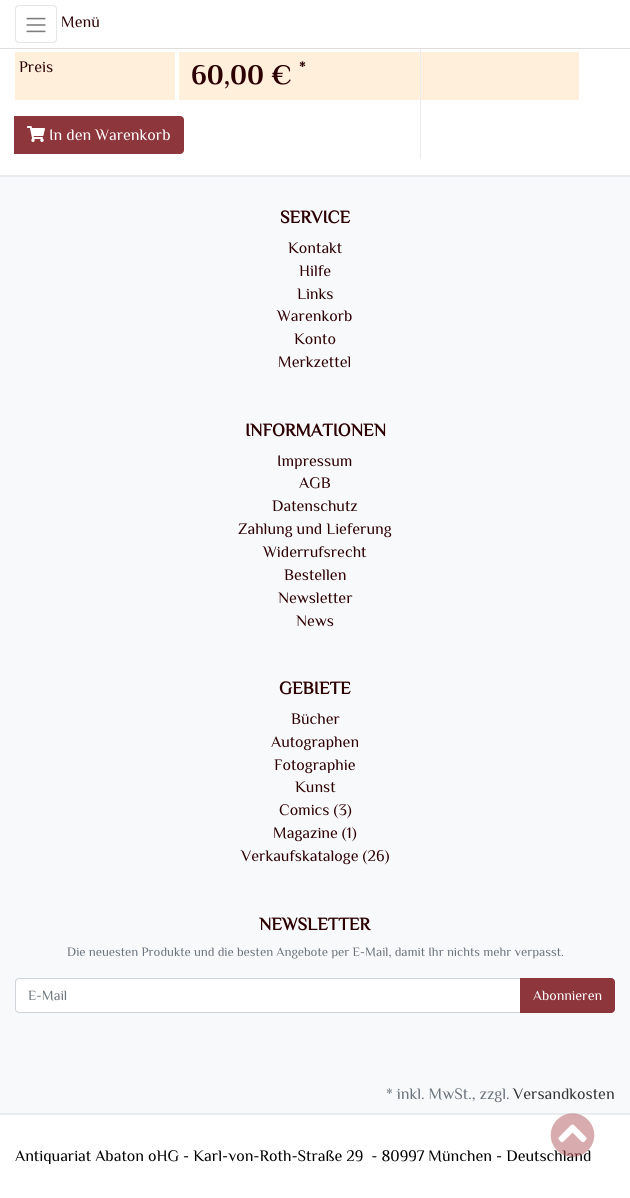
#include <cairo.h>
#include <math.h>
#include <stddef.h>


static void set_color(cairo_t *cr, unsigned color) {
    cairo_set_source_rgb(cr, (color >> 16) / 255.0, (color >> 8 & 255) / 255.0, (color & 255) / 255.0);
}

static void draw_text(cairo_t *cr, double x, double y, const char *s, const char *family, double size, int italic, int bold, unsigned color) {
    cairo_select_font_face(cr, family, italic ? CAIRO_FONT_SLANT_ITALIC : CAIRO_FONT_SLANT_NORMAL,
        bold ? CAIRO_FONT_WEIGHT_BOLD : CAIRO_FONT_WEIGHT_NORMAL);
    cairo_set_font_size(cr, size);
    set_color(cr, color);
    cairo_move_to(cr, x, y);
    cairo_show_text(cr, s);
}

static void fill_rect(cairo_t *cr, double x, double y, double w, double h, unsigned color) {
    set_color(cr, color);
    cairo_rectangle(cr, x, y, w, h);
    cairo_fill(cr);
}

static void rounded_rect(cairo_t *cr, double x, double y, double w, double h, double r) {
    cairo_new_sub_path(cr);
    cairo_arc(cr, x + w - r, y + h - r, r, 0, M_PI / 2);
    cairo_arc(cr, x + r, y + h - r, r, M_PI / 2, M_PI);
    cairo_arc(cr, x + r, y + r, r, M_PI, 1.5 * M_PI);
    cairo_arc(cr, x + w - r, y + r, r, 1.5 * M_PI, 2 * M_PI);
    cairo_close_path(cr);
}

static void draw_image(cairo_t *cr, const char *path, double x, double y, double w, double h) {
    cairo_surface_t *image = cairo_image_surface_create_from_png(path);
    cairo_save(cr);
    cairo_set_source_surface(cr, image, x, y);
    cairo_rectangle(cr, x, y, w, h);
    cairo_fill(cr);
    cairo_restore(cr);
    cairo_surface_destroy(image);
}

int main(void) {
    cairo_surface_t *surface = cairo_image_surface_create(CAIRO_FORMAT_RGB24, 630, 1198);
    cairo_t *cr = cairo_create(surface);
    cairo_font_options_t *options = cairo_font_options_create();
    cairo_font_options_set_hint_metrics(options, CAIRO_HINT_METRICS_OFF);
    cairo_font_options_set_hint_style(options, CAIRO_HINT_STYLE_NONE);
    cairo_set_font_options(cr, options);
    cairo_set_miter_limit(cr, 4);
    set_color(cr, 0xFFFFFF);
    cairo_paint(cr);
    fill_rect(cr, 0, 48, 630, 1, 0xDDDDDD);
    rounded_rect(cr, 15.5, 5.5, 41, 37, 3.5);
    set_color(cr, 0xE6E6E6);
    cairo_set_line_width(cr, 1);
    cairo_stroke(cr);
    draw_image(cr, "assets/img1.png", 26, 17, 20, 16);
    draw_text(cr, 61, 27, "Menü", "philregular", 16, 0, 0, 0x2C0003);
    fill_rect(cr, 15, 52, 160, 48, 0xFFEFDB);
    draw_text(cr, 19, 72, "Preis", "philregular", 16, 0, 0, 0x2C0003);
    fill_rect(cr, 179, 52, 400, 48, 0xFFEFDB);
    draw_text(cr, 191, 84, "60,00 €", "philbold", 28, 0, 1, 0x2C0003);
    draw_text(cr, 299, 72, "*", "philbold", 16, 0, 1, 0x2C0003);
    set_color(cr, 0x8D373D);
    cairo_new_path(cr);
    cairo_move_to(cr, 14.5, 116.5);
    cairo_line_to(cr, 180, 116.5);
    cairo_curve_to(cr, 182, 116.5, 183.5, 118, 183.5, 120);
    cairo_line_to(cr, 183.5, 150);
    cairo_curve_to(cr, 183.5, 152, 182, 153.5, 180, 153.5);
    cairo_line_to(cr, 14.5, 153.5);
    cairo_close_path(cr);
    cairo_fill_preserve(cr);
    cairo_stroke(cr);
    draw_image(cr, "assets/img2.png", 27, 126, 18, 16);
    draw_text(cr, 49, 140, "In den Warenkorb", "philregular", 16, 0, 0, 0xFFFFFF);
    fill_rect(cr, 420, 49, 1, 110, 0xE9ECEF);
    fill_rect(cr, 0, 177, 630, 936, 0xF8F9FA);
    fill_rect(cr, 0, 175, 630, 2, 0xE9ECEF);
    fill_rect(cr, 0, 1113, 630, 2, 0xE9ECEF);
    draw_text(cr, 280, 223, "SERVICE", "philregular", 18, 0, 1, 0x2C0003);
    draw_text(cr, 288, 253, "Kontakt", "philregular", 16, 0, 0, 0x2C0003);
    draw_text(cr, 299, 276, "Hilfe", "philregular", 16, 0, 0, 0x2C0003);
    draw_text(cr, 297, 299, "Links", "philregular", 16, 0, 0, 0x2C0003);
    draw_text(cr, 277, 321, "Warenkorb", "philregular", 16, 0, 0, 0x2C0003);
    draw_text(cr, 294, 344, "Konto", "philregular", 16, 0, 0, 0x2C0003);
    draw_text(cr, 278, 367, "Merkzettel", "philregular", 16, 0, 0, 0x2C0003);
    draw_text(cr, 245, 436, "INFORMATIONEN", "philregular", 18, 0, 1, 0x2C0003);
    draw_text(cr, 277, 466, "Impressum", "philregular", 16, 0, 0, 0x2C0003);
    draw_text(cr, 299, 488, "AGB", "philregular", 16, 0, 0, 0x2C0003);
    draw_text(cr, 272, 511, "Datenschutz", "philregular", 16, 0, 0, 0x2C0003);
    draw_text(cr, 238, 534, "Zahlung und Lieferung", "philregular", 16, 0, 0, 0x2C0003);
    draw_text(cr, 263, 557, "Widerrufsrecht", "philregular", 16, 0, 0, 0x2C0003);
    draw_text(cr, 284, 580, "Bestellen", "philregular", 16, 0, 0, 0x2C0003);
    draw_text(cr, 278, 603, "Newsletter", "philregular", 16, 0, 0, 0x2C0003);
    draw_text(cr, 296, 626, "News", "philregular", 16, 0, 0, 0x2C0003);
    draw_text(cr, 279, 694, "GEBIETE", "philregular", 18, 0, 1, 0x2C0003);
    draw_text(cr, 291, 724, "Bücher", "philregular", 16, 0, 0, 0x2C0003);
    draw_text(cr, 271, 747, "Autographen", "philregular", 16, 0, 0, 0x2C0003);
    draw_text(cr, 274, 770, "Fotographie", "philregular", 16, 0, 0, 0x2C0003);
    draw_text(cr, 295, 792, "Kunst", "philregular", 16, 0, 0, 0x2C0003);
    draw_text(cr, 279, 815, "Comics (3)", "philregular", 16, 0, 0, 0x2C0003);
    draw_text(cr, 273, 838, "Magazine (1)", "philregular", 16, 0, 0, 0x2C0003);
    draw_text(cr, 241, 861, "Verkaufskataloge (26)", "philregular", 16, 0, 0, 0x2C0003);
    draw_text(cr, 259, 930, "NEWSLETTER", "philregular", 18, 0, 1, 0x2C0003);
    draw_text(cr, 67, 956, "Die neuesten Produkte und die besten Angebote per E-Mail, damit Ihr nichts mehr verpasst.", "philregular", 12.8, 0, 0, 0x6C757D);
    set_color(cr, 0xFFFFFF);
    cairo_new_path(cr);
    cairo_move_to(cr, 19, 978.5);
    cairo_line_to(cr, 520.5, 978.5);
    cairo_line_to(cr, 520.5, 1012.5);
    cairo_line_to(cr, 19, 1012.5);
    cairo_curve_to(cr, 17, 1012.5, 15.5, 1011, 15.5, 1009);
    cairo_line_to(cr, 15.5, 982);
    cairo_curve_to(cr, 15.5, 980, 17, 978.5, 19, 978.5);
    cairo_close_path(cr);
    cairo_fill_preserve(cr);
    set_color(cr, 0xCED4DA);
    cairo_stroke(cr);
    draw_text(cr, 28, 1000, "E-Mail", "philregular", 14, 0, 0, 0x6C757D);
    set_color(cr, 0x8D373D);
    cairo_new_path(cr);
    cairo_move_to(cr, 520.5, 978.5);
    cairo_line_to(cr, 611, 978.5);
    cairo_curve_to(cr, 613, 978.5, 614.5, 980, 614.5, 982);
    cairo_line_to(cr, 614.5, 1009);
    cairo_curve_to(cr, 614.5, 1011, 613, 1012.5, 611, 1012.5);
    cairo_line_to(cr, 520.5, 1012.5);
    cairo_close_path(cr);
    cairo_fill_preserve(cr);
    cairo_stroke(cr);
    draw_text(cr, 533, 1000, "Abonnieren", "philregular", 14, 0, 0, 0xFFFFFF);
    draw_text(cr, 386, 1099, "* inkl. MwSt., zzgl.", "philregular", 16, 0, 0, 0x6C757D);
    draw_text(cr, 513, 1099, "Versandkosten", "philregular", 16, 0, 0, 0x333333);
    draw_text(cr, 15, 1161, "Antiquariat Abaton oHG - Karl-von-Roth-Straße 29  - 80997 München - Deutschland", "philregular", 16, 0, 0, 0x000000);
    draw_image(cr, "assets/img3.png", 550, 1113, 45, 44);
    cairo_surface_write_to_png(surface, "output.png");
    cairo_font_options_destroy(options);
    cairo_destroy(cr);
    cairo_surface_destroy(surface);
    return 0;
}
